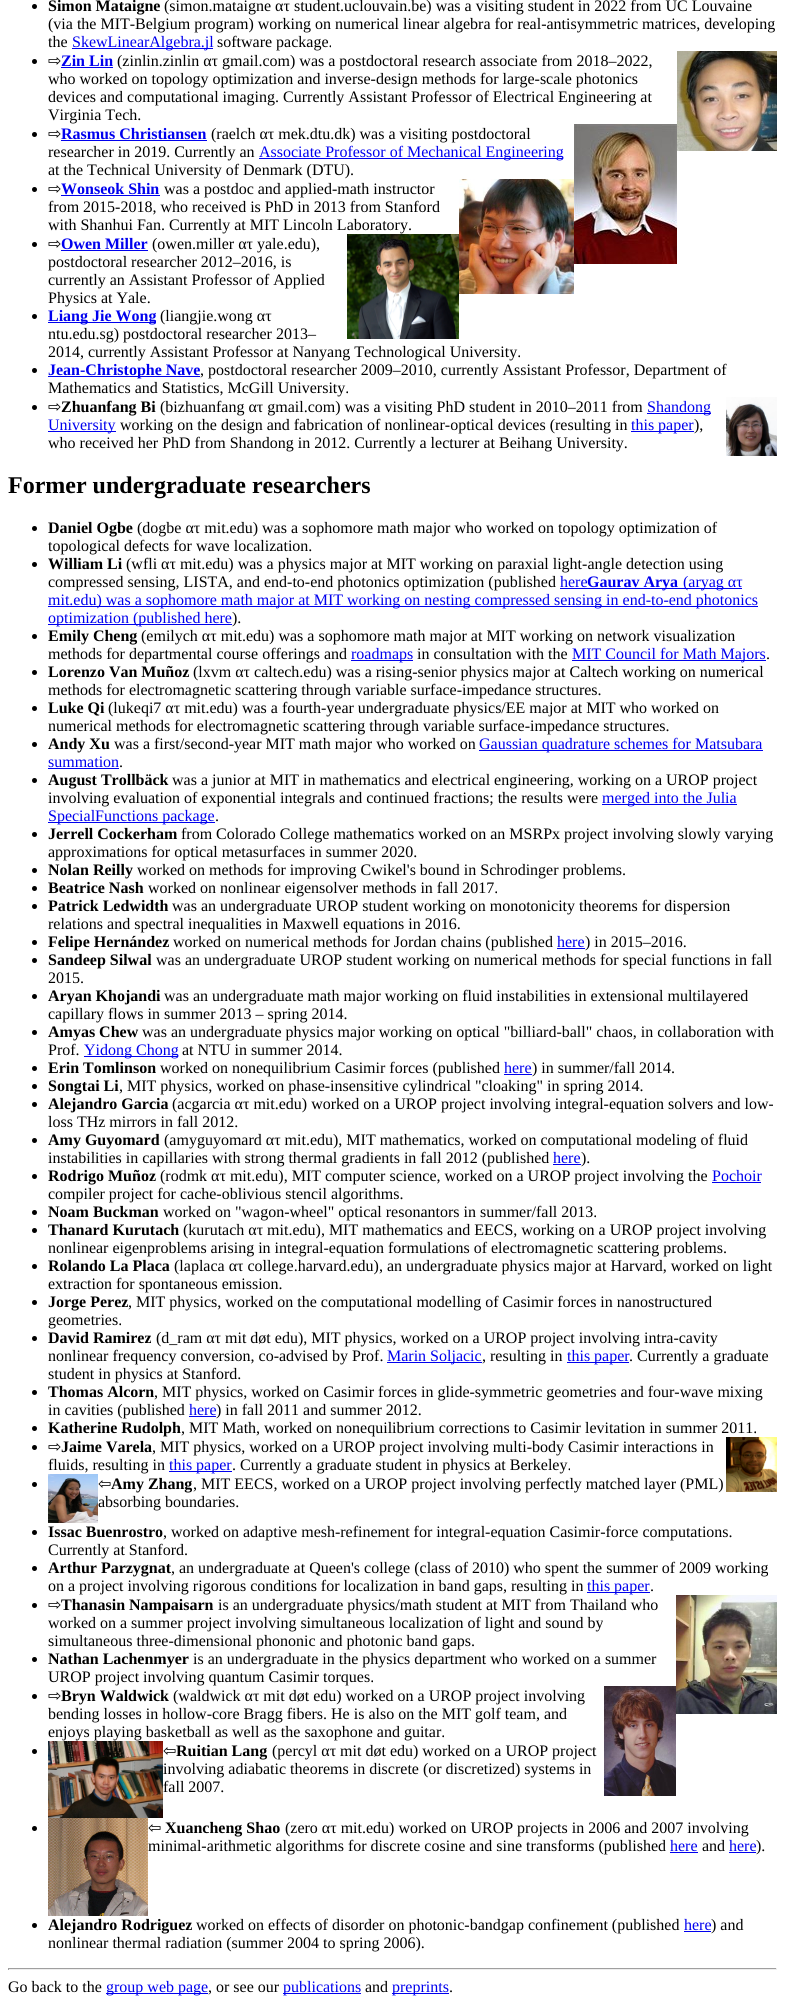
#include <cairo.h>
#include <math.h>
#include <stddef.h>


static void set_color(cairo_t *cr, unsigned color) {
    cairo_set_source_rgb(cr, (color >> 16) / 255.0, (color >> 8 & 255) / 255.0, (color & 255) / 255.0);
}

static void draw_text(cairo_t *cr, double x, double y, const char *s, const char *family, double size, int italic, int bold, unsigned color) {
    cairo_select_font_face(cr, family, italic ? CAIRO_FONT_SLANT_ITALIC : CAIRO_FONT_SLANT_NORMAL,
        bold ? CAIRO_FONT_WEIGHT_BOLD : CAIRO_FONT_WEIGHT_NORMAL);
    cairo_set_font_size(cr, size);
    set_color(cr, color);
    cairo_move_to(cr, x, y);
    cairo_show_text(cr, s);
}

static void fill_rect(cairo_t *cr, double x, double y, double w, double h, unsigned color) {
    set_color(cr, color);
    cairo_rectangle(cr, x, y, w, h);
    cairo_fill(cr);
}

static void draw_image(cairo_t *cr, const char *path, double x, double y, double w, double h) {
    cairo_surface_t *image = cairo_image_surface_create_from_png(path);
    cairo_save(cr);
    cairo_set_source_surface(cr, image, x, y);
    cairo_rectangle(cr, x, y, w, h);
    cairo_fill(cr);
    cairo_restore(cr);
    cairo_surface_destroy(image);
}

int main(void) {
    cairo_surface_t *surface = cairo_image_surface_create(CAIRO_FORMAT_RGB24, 785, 2004);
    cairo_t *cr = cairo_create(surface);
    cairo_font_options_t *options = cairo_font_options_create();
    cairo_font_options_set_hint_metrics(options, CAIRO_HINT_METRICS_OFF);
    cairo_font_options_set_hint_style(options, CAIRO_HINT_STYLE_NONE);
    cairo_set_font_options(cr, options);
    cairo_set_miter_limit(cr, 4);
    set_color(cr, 0xFFFFFF);
    cairo_paint(cr);
    set_color(cr, 0x000000);
    cairo_arc(cr, 34.5, 6.5, 2.5, 0, 2 * M_PI);
    cairo_fill(cr);
    draw_text(cr, 48, 11, "Simon Mataigne", "Liberation Serif", 16, 0, 1, 0x000000);
    draw_text(cr, 164, 11, "(simon.mataigne ατ student.uclouvain.be) was a visiting student in 2022 from UC Louvaine", "Liberation Serif", 16, 0, 0, 0x000000);
    draw_text(cr, 48, 29, "(via the MIT-Belgium program) working on numerical linear algebra for real-antisymmetric matrices, developing", "Liberation Serif", 16, 0, 0, 0x000000);
    draw_text(cr, 48, 47, "the", "Liberation Serif", 16, 0, 0, 0x000000);
    fill_rect(cr, 72, 48, 141, 1, 0x0000EE);
    draw_text(cr, 72, 47, "SkewLinearAlgebra.jl", "Liberation Serif", 16, 0, 0, 0x0000EE);
    draw_text(cr, 217, 47, "software package.", "Liberation Serif", 16, 0, 0, 0x000000);
    cairo_new_path(cr);
    cairo_arc(cr, 34.5, 61.5, 2.5, 0, 2 * M_PI);
    cairo_fill(cr);
    draw_text(cr, 48, 66, "⇨", "DejaVu Sans", 16, 0, 0, 0x000000);
    draw_text(cr, 61, 66, "Zin Lin", "Liberation Serif", 16, 0, 1, 0x0000EE);
    fill_rect(cr, 61, 67, 52, 1, 0x0000EE);
    draw_text(cr, 117, 66, "(zinlin.zinlin ατ gmail.com) was a postdoctoral research associate from 2018–2022,", "Liberation Serif", 16, 0, 0, 0x000000);
    draw_image(cr, "assets/img1.png", 677, 51, 100, 100);
    draw_text(cr, 48, 84, "who worked on topology optimization and inverse-design methods for large-scale photonics", "Liberation Serif", 16, 0, 0, 0x000000);
    draw_text(cr, 48, 102, "devices and computational imaging. Currently Assistant Professor of Electrical Engineering at", "Liberation Serif", 16, 0, 0, 0x000000);
    draw_text(cr, 48, 120, "Virginia Tech.", "Liberation Serif", 16, 0, 0, 0x000000);
    cairo_new_path(cr);
    cairo_arc(cr, 34.5, 134.5, 2.5, 0, 2 * M_PI);
    cairo_fill(cr);
    draw_text(cr, 48, 139, "⇨", "DejaVu Sans", 16, 0, 0, 0x000000);
    draw_text(cr, 61, 139, "Rasmus Christiansen", "Liberation Serif", 16, 0, 1, 0x0000EE);
    fill_rect(cr, 61, 140, 146, 1, 0x0000EE);
    draw_text(cr, 211, 139, "(raelch ατ mek.dtu.dk) was a visiting postdoctoral", "Liberation Serif", 16, 0, 0, 0x000000);
    draw_image(cr, "assets/img2.png", 574, 124, 103, 140);
    draw_text(cr, 48, 157, "researcher in 2019. Currently an", "Liberation Serif", 16, 0, 0, 0x000000);
    fill_rect(cr, 259, 158, 304, 1, 0x0000EE);
    draw_text(cr, 259, 157, "Associate Professor of Mechanical Engineering", "Liberation Serif", 16, 0, 0, 0x0000EE);
    draw_text(cr, 48, 175, "at the Technical University of Denmark (DTU).", "Liberation Serif", 16, 0, 0, 0x000000);
    cairo_new_path(cr);
    cairo_arc(cr, 34.5, 189.5, 2.5, 0, 2 * M_PI);
    cairo_fill(cr);
    draw_text(cr, 48, 194, "⇨", "DejaVu Sans", 16, 0, 0, 0x000000);
    draw_text(cr, 61, 194, "Wonseok Shin", "Liberation Serif", 16, 0, 1, 0x0000EE);
    fill_rect(cr, 61, 195, 99, 1, 0x0000EE);
    draw_text(cr, 164, 194, "was a postdoc and applied-math instructor", "Liberation Serif", 16, 0, 0, 0x000000);
    draw_image(cr, "assets/img3.png", 459, 179, 115, 115);
    draw_text(cr, 48, 212, "from 2015-2018, who received is PhD in 2013 from Stanford", "Liberation Serif", 16, 0, 0, 0x000000);
    draw_text(cr, 48, 230, "with Shanhui Fan. Currently at MIT Lincoln Laboratory.", "Liberation Serif", 16, 0, 0, 0x000000);
    cairo_new_path(cr);
    cairo_arc(cr, 34.5, 244.5, 2.5, 0, 2 * M_PI);
    cairo_fill(cr);
    draw_text(cr, 48, 249, "⇨", "DejaVu Sans", 16, 0, 0, 0x000000);
    draw_text(cr, 61, 249, "Owen Miller", "Liberation Serif", 16, 0, 1, 0x0000EE);
    fill_rect(cr, 61, 250, 87, 1, 0x0000EE);
    draw_text(cr, 152, 249, "(owen.miller ατ yale.edu),", "Liberation Serif", 16, 0, 0, 0x000000);
    draw_image(cr, "assets/img4.png", 347, 234, 112, 105);
    draw_text(cr, 48, 267, "postdoctoral researcher 2012–2016, is", "Liberation Serif", 16, 0, 0, 0x000000);
    draw_text(cr, 48, 285, "currently an Assistant Professor of Applied", "Liberation Serif", 16, 0, 0, 0x000000);
    draw_text(cr, 48, 303, "Physics at Yale.", "Liberation Serif", 16, 0, 0, 0x000000);
    cairo_new_path(cr);
    cairo_arc(cr, 34.5, 316.5, 2.5, 0, 2 * M_PI);
    cairo_fill(cr);
    fill_rect(cr, 48, 322, 108, 1, 0x0000EE);
    draw_text(cr, 48, 321, "Liang Jie Wong", "Liberation Serif", 16, 0, 1, 0x0000EE);
    draw_text(cr, 160, 321, "(liangjie.wong ατ", "Liberation Serif", 16, 0, 0, 0x000000);
    draw_text(cr, 48, 339, "ntu.edu.sg) postdoctoral researcher 2013–", "Liberation Serif", 16, 0, 0, 0x000000);
    draw_text(cr, 48, 357, "2014, currently Assistant Professor at Nanyang Technological University.", "Liberation Serif", 16, 0, 0, 0x000000);
    cairo_new_path(cr);
    cairo_arc(cr, 34.5, 370.5, 2.5, 0, 2 * M_PI);
    cairo_fill(cr);
    fill_rect(cr, 48, 376, 152, 1, 0x0000EE);
    draw_text(cr, 48, 375, "Jean-Christophe Nave", "Liberation Serif", 16, 0, 1, 0x0000EE);
    draw_text(cr, 200, 375, ", postdoctoral researcher 2009–2010, currently Assistant Professor, Department of", "Liberation Serif", 16, 0, 0, 0x000000);
    draw_text(cr, 48, 393, "Mathematics and Statistics, McGill University.", "Liberation Serif", 16, 0, 0, 0x000000);
    cairo_new_path(cr);
    cairo_arc(cr, 34.5, 407.5, 2.5, 0, 2 * M_PI);
    cairo_fill(cr);
    draw_text(cr, 48, 412, "⇨", "DejaVu Sans", 16, 0, 0, 0x000000);
    draw_text(cr, 61, 412, "Zhuanfang Bi", "Liberation Serif", 16, 0, 1, 0x000000);
    draw_text(cr, 160, 412, "(bizhuanfang ατ gmail.com) was a visiting PhD student in 2010–2011 from", "Liberation Serif", 16, 0, 0, 0x000000);
    fill_rect(cr, 647, 413, 64, 1, 0x0000EE);
    draw_text(cr, 647, 412, "Shandong", "Liberation Serif", 16, 0, 0, 0x0000EE);
    draw_image(cr, "assets/img5.png", 726, 397, 51, 59);
    fill_rect(cr, 48, 431, 68, 1, 0x0000EE);
    draw_text(cr, 48, 430, "University", "Liberation Serif", 16, 0, 0, 0x0000EE);
    draw_text(cr, 120, 430, "working on the design and fabrication of nonlinear-optical devices (resulting in", "Liberation Serif", 16, 0, 0, 0x000000);
    fill_rect(cr, 631, 431, 63, 1, 0x0000EE);
    draw_text(cr, 631, 430, "this paper", "Liberation Serif", 16, 0, 0, 0x0000EE);
    draw_text(cr, 694, 430, "),", "Liberation Serif", 16, 0, 0, 0x000000);
    draw_text(cr, 48, 448, "who received her PhD from Shandong in 2012. Currently a lecturer at Beihang University.", "Liberation Serif", 16, 0, 0, 0x000000);
    draw_text(cr, 8, 493, "Former undergraduate researchers", "Liberation Serif", 24, 0, 1, 0x000000);
    cairo_new_path(cr);
    cairo_arc(cr, 34.5, 528.5, 2.5, 0, 2 * M_PI);
    cairo_fill(cr);
    draw_text(cr, 48, 533, "Daniel Ogbe", "Liberation Serif", 16, 0, 1, 0x000000);
    draw_text(cr, 137, 533, "(dogbe ατ mit.edu) was a sophomore math major who worked on topology optimization of", "Liberation Serif", 16, 0, 0, 0x000000);
    draw_text(cr, 48, 551, "topological defects for wave localization.", "Liberation Serif", 16, 0, 0, 0x000000);
    cairo_new_path(cr);
    cairo_arc(cr, 34.5, 564.5, 2.5, 0, 2 * M_PI);
    cairo_fill(cr);
    draw_text(cr, 48, 569, "William Li", "Liberation Serif", 16, 0, 1, 0x000000);
    draw_text(cr, 126, 569, "(wfli ατ mit.edu) was a physics major at MIT working on paraxial light-angle detection using", "Liberation Serif", 16, 0, 0, 0x000000);
    draw_text(cr, 48, 587, "compressed sensing, LISTA, and end-to-end photonics optimization (published", "Liberation Serif", 16, 0, 0, 0x000000);
    draw_text(cr, 560, 587, "here", "Liberation Serif", 16, 0, 0, 0x0000EE);
    fill_rect(cr, 560, 588, 182, 1, 0x0000EE);
    draw_text(cr, 587, 587, "Gaurav Arya", "Liberation Serif", 16, 0, 1, 0x0000EE);
    draw_text(cr, 683, 587, "(aryag ατ", "Liberation Serif", 16, 0, 0, 0x0000EE);
    fill_rect(cr, 48, 606, 710, 1, 0x0000EE);
    draw_text(cr, 48, 605, "mit.edu) was a sophomore math major at MIT working on nesting compressed sensing in end-to-end photonics", "Liberation Serif", 16, 0, 0, 0x0000EE);
    fill_rect(cr, 48, 624, 184, 1, 0x0000EE);
    draw_text(cr, 48, 623, "optimization (published here", "Liberation Serif", 16, 0, 0, 0x0000EE);
    draw_text(cr, 232, 623, ").", "Liberation Serif", 16, 0, 0, 0x000000);
    cairo_new_path(cr);
    cairo_arc(cr, 34.5, 636.5, 2.5, 0, 2 * M_PI);
    cairo_fill(cr);
    draw_text(cr, 48, 641, "Emily Cheng", "Liberation Serif", 16, 0, 1, 0x000000);
    draw_text(cr, 141, 641, "(emilych ατ mit.edu) was a sophomore math major at MIT working on network visualization", "Liberation Serif", 16, 0, 0, 0x000000);
    draw_text(cr, 48, 659, "methods for departmental course offerings and", "Liberation Serif", 16, 0, 0, 0x000000);
    fill_rect(cr, 351, 660, 62, 1, 0x0000EE);
    draw_text(cr, 351, 659, "roadmaps", "Liberation Serif", 16, 0, 0, 0x0000EE);
    draw_text(cr, 417, 659, "in consultation with the", "Liberation Serif", 16, 0, 0, 0x000000);
    fill_rect(cr, 572, 660, 194, 1, 0x0000EE);
    draw_text(cr, 572, 659, "MIT Council for Math Majors", "Liberation Serif", 16, 0, 0, 0x0000EE);
    draw_text(cr, 766, 659, ".", "Liberation Serif", 16, 0, 0, 0x000000);
    cairo_new_path(cr);
    cairo_arc(cr, 34.5, 672.5, 2.5, 0, 2 * M_PI);
    cairo_fill(cr);
    draw_text(cr, 48, 677, "Lorenzo Van Muñoz", "Liberation Serif", 16, 0, 1, 0x000000);
    draw_text(cr, 193, 677, "(lxvm ατ caltech.edu) was a rising-senior physics major at Caltech working on numerical", "Liberation Serif", 16, 0, 0, 0x000000);
    draw_text(cr, 48, 695, "methods for electromagnetic scattering through variable surface-impedance structures.", "Liberation Serif", 16, 0, 0, 0x000000);
    cairo_new_path(cr);
    cairo_arc(cr, 34.5, 708.5, 2.5, 0, 2 * M_PI);
    cairo_fill(cr);
    draw_text(cr, 48, 713, "Luke Qi", "Liberation Serif", 16, 0, 1, 0x000000);
    draw_text(cr, 108, 713, "(lukeqi7 ατ mit.edu) was a fourth-year undergraduate physics/EE major at MIT who worked on", "Liberation Serif", 16, 0, 0, 0x000000);
    draw_text(cr, 48, 731, "numerical methods for electromagnetic scattering through variable surface-impedance structures.", "Liberation Serif", 16, 0, 0, 0x000000);
    cairo_new_path(cr);
    cairo_arc(cr, 34.5, 744.5, 2.5, 0, 2 * M_PI);
    cairo_fill(cr);
    draw_text(cr, 48, 749, "Andy Xu", "Liberation Serif", 16, 0, 1, 0x000000);
    draw_text(cr, 114, 749, "was a first/second-year MIT math major who worked on", "Liberation Serif", 16, 0, 0, 0x000000);
    fill_rect(cr, 479, 750, 284, 1, 0x0000EE);
    draw_text(cr, 479, 749, "Gaussian quadrature schemes for Matsubara", "Liberation Serif", 16, 0, 0, 0x0000EE);
    draw_text(cr, 48, 767, "summation", "Liberation Serif", 16, 0, 0, 0x0000EE);
    fill_rect(cr, 48, 768, 71, 1, 0x0000EE);
    draw_text(cr, 119, 767, ".", "Liberation Serif", 16, 0, 0, 0x000000);
    cairo_new_path(cr);
    cairo_arc(cr, 34.5, 780.5, 2.5, 0, 2 * M_PI);
    cairo_fill(cr);
    draw_text(cr, 48, 785, "August Trollbäck", "Liberation Serif", 16, 0, 1, 0x000000);
    draw_text(cr, 172, 785, "was a junior at MIT in mathematics and electrical engineering, working on a UROP project", "Liberation Serif", 16, 0, 0, 0x000000);
    draw_text(cr, 48, 803, "involving evaluation of exponential integrals and continued fractions; the results were", "Liberation Serif", 16, 0, 0, 0x000000);
    fill_rect(cr, 602, 804, 135, 1, 0x0000EE);
    draw_text(cr, 602, 803, "merged into the Julia", "Liberation Serif", 16, 0, 0, 0x0000EE);
    fill_rect(cr, 48, 822, 167, 1, 0x0000EE);
    draw_text(cr, 48, 821, "SpecialFunctions package", "Liberation Serif", 16, 0, 0, 0x0000EE);
    draw_text(cr, 215, 821, ".", "Liberation Serif", 16, 0, 0, 0x000000);
    cairo_new_path(cr);
    cairo_arc(cr, 34.5, 834.5, 2.5, 0, 2 * M_PI);
    cairo_fill(cr);
    draw_text(cr, 48, 839, "Jerrell Cockerham", "Liberation Serif", 16, 0, 1, 0x000000);
    draw_text(cr, 181, 839, "from Colorado College mathematics worked on an MSRPx project involving slowly varying", "Liberation Serif", 16, 0, 0, 0x000000);
    draw_text(cr, 48, 857, "approximations for optical metasurfaces in summer 2020.", "Liberation Serif", 16, 0, 0, 0x000000);
    cairo_new_path(cr);
    cairo_arc(cr, 34.5, 870.5, 2.5, 0, 2 * M_PI);
    cairo_fill(cr);
    draw_text(cr, 48, 875, "Nolan Reilly", "Liberation Serif", 16, 0, 1, 0x000000);
    draw_text(cr, 137, 875, "worked on methods for improving Cwikel's bound in Schrodinger problems.", "Liberation Serif", 16, 0, 0, 0x000000);
    cairo_new_path(cr);
    cairo_arc(cr, 34.5, 888.5, 2.5, 0, 2 * M_PI);
    cairo_fill(cr);
    draw_text(cr, 48, 893, "Beatrice Nash", "Liberation Serif", 16, 0, 1, 0x000000);
    draw_text(cr, 148, 893, "worked on nonlinear eigensolver methods in fall 2017.", "Liberation Serif", 16, 0, 0, 0x000000);
    cairo_new_path(cr);
    cairo_arc(cr, 34.5, 906.5, 2.5, 0, 2 * M_PI);
    cairo_fill(cr);
    draw_text(cr, 48, 911, "Patrick Ledwidth", "Liberation Serif", 16, 0, 1, 0x000000);
    draw_text(cr, 172, 911, "was an undergraduate UROP student working on monotonicity theorems for dispersion", "Liberation Serif", 16, 0, 0, 0x000000);
    draw_text(cr, 48, 929, "relations and spectral inequalities in Maxwell equations in 2016.", "Liberation Serif", 16, 0, 0, 0x000000);
    cairo_new_path(cr);
    cairo_arc(cr, 34.5, 942.5, 2.5, 0, 2 * M_PI);
    cairo_fill(cr);
    draw_text(cr, 48, 947, "Felipe Hernández", "Liberation Serif", 16, 0, 1, 0x000000);
    draw_text(cr, 173, 947, "worked on numerical methods for Jordan chains (published", "Liberation Serif", 16, 0, 0, 0x000000);
    draw_text(cr, 557, 947, "here", "Liberation Serif", 16, 0, 0, 0x0000EE);
    fill_rect(cr, 557, 948, 28, 1, 0x0000EE);
    draw_text(cr, 585, 947, ") in 2015–2016.", "Liberation Serif", 16, 0, 0, 0x000000);
    cairo_new_path(cr);
    cairo_arc(cr, 34.5, 960.5, 2.5, 0, 2 * M_PI);
    cairo_fill(cr);
    draw_text(cr, 48, 965, "Sandeep Silwal", "Liberation Serif", 16, 0, 1, 0x000000);
    draw_text(cr, 156, 965, "was an undergraduate UROP student working on numerical methods for special functions in fall", "Liberation Serif", 16, 0, 0, 0x000000);
    draw_text(cr, 48, 983, "2015.", "Liberation Serif", 16, 0, 0, 0x000000);
    cairo_new_path(cr);
    cairo_arc(cr, 34.5, 996.5, 2.5, 0, 2 * M_PI);
    cairo_fill(cr);
    draw_text(cr, 48, 1001, "Aryan Khojandi", "Liberation Serif", 16, 0, 1, 0x000000);
    draw_text(cr, 164, 1001, "was an undergraduate math major working on fluid instabilities in extensional multilayered", "Liberation Serif", 16, 0, 0, 0x000000);
    draw_text(cr, 48, 1019, "capillary flows in summer 2013 – spring 2014.", "Liberation Serif", 16, 0, 0, 0x000000);
    cairo_new_path(cr);
    cairo_arc(cr, 34.5, 1032.5, 2.5, 0, 2 * M_PI);
    cairo_fill(cr);
    draw_text(cr, 48, 1037, "Amyas Chew", "Liberation Serif", 16, 0, 1, 0x000000);
    draw_text(cr, 142, 1037, "was an undergraduate physics major working on optical \"billiard-ball\" chaos, in collaboration with", "Liberation Serif", 16, 0, 0, 0x000000);
    draw_text(cr, 48, 1055, "Prof.", "Liberation Serif", 16, 0, 0, 0x000000);
    fill_rect(cr, 84, 1056, 94, 1, 0x0000EE);
    draw_text(cr, 84, 1055, "Yidong Chong", "Liberation Serif", 16, 0, 0, 0x0000EE);
    draw_text(cr, 182, 1055, "at NTU in summer 2014.", "Liberation Serif", 16, 0, 0, 0x000000);
    cairo_new_path(cr);
    cairo_arc(cr, 34.5, 1068.5, 2.5, 0, 2 * M_PI);
    cairo_fill(cr);
    draw_text(cr, 48, 1073, "Erin Tomlinson", "Liberation Serif", 16, 0, 1, 0x000000);
    draw_text(cr, 160, 1073, "worked on nonequilibrium Casimir forces (published", "Liberation Serif", 16, 0, 0, 0x000000);
    draw_text(cr, 504, 1073, "here", "Liberation Serif", 16, 0, 0, 0x0000EE);
    fill_rect(cr, 504, 1074, 28, 1, 0x0000EE);
    draw_text(cr, 532, 1073, ") in summer/fall 2014.", "Liberation Serif", 16, 0, 0, 0x000000);
    cairo_new_path(cr);
    cairo_arc(cr, 34.5, 1086.5, 2.5, 0, 2 * M_PI);
    cairo_fill(cr);
    draw_text(cr, 48, 1091, "Songtai Li", "Liberation Serif", 16, 0, 1, 0x000000);
    draw_text(cr, 119, 1091, ", MIT physics, worked on phase-insensitive cylindrical \"cloaking\" in spring 2014.", "Liberation Serif", 16, 0, 0, 0x000000);
    cairo_new_path(cr);
    cairo_arc(cr, 34.5, 1104.5, 2.5, 0, 2 * M_PI);
    cairo_fill(cr);
    draw_text(cr, 48, 1109, "Alejandro Garcia", "Liberation Serif", 16, 0, 1, 0x000000);
    draw_text(cr, 172, 1109, "(acgarcia ατ mit.edu) worked on a UROP project involving integral-equation solvers and low-", "Liberation Serif", 16, 0, 0, 0x000000);
    draw_text(cr, 48, 1127, "loss THz mirrors in fall 2012.", "Liberation Serif", 16, 0, 0, 0x000000);
    cairo_new_path(cr);
    cairo_arc(cr, 34.5, 1140.5, 2.5, 0, 2 * M_PI);
    cairo_fill(cr);
    draw_text(cr, 48, 1145, "Amy Guyomard", "Liberation Serif", 16, 0, 1, 0x000000);
    draw_text(cr, 164, 1145, "(amyguyomard ατ mit.edu), MIT mathematics, worked on computational modeling of fluid", "Liberation Serif", 16, 0, 0, 0x000000);
    draw_text(cr, 48, 1163, "instabilities in capillaries with strong thermal gradients in fall 2012 (published", "Liberation Serif", 16, 0, 0, 0x000000);
    draw_text(cr, 553, 1163, "here", "Liberation Serif", 16, 0, 0, 0x0000EE);
    fill_rect(cr, 553, 1164, 28, 1, 0x0000EE);
    draw_text(cr, 581, 1163, ").", "Liberation Serif", 16, 0, 0, 0x000000);
    cairo_new_path(cr);
    cairo_arc(cr, 34.5, 1176.5, 2.5, 0, 2 * M_PI);
    cairo_fill(cr);
    draw_text(cr, 48, 1181, "Rodrigo Muñoz", "Liberation Serif", 16, 0, 1, 0x000000);
    draw_text(cr, 160, 1181, "(rodmk ατ mit.edu), MIT computer science, worked on a UROP project involving the", "Liberation Serif", 16, 0, 0, 0x000000);
    draw_text(cr, 712, 1181, "Pochoir", "Liberation Serif", 16, 0, 0, 0x0000EE);
    fill_rect(cr, 712, 1182, 49, 1, 0x0000EE);
    draw_text(cr, 48, 1199, "compiler project for cache-oblivious stencil algorithms.", "Liberation Serif", 16, 0, 0, 0x000000);
    cairo_new_path(cr);
    cairo_arc(cr, 34.5, 1212.5, 2.5, 0, 2 * M_PI);
    cairo_fill(cr);
    draw_text(cr, 48, 1217, "Noam Buckman", "Liberation Serif", 16, 0, 1, 0x000000);
    draw_text(cr, 163, 1217, "worked on \"wagon-wheel\" optical resonantors in summer/fall 2013.", "Liberation Serif", 16, 0, 0, 0x000000);
    cairo_new_path(cr);
    cairo_arc(cr, 34.5, 1230.5, 2.5, 0, 2 * M_PI);
    cairo_fill(cr);
    draw_text(cr, 48, 1235, "Thanard Kurutach", "Liberation Serif", 16, 0, 1, 0x000000);
    draw_text(cr, 183, 1235, "(kurutach ατ mit.edu), MIT mathematics and EECS, working on a UROP project involving", "Liberation Serif", 16, 0, 0, 0x000000);
    draw_text(cr, 48, 1253, "nonlinear eigenproblems arising in integral-equation formulations of electromagnetic scattering problems.", "Liberation Serif", 16, 0, 0, 0x000000);
    cairo_new_path(cr);
    cairo_arc(cr, 34.5, 1266.5, 2.5, 0, 2 * M_PI);
    cairo_fill(cr);
    draw_text(cr, 48, 1271, "Rolando La Placa", "Liberation Serif", 16, 0, 1, 0x000000);
    draw_text(cr, 174, 1271, "(laplaca ατ college.harvard.edu), an undergraduate physics major at Harvard, worked on light", "Liberation Serif", 16, 0, 0, 0x000000);
    draw_text(cr, 48, 1289, "extraction for spontaneous emission.", "Liberation Serif", 16, 0, 0, 0x000000);
    cairo_new_path(cr);
    cairo_arc(cr, 34.5, 1302.5, 2.5, 0, 2 * M_PI);
    cairo_fill(cr);
    draw_text(cr, 48, 1307, "Jorge Perez", "Liberation Serif", 16, 0, 1, 0x000000);
    draw_text(cr, 128, 1307, ", MIT physics, worked on the computational modelling of Casimir forces in nanostructured", "Liberation Serif", 16, 0, 0, 0x000000);
    draw_text(cr, 48, 1325, "geometries.", "Liberation Serif", 16, 0, 0, 0x000000);
    cairo_new_path(cr);
    cairo_arc(cr, 34.5, 1338.5, 2.5, 0, 2 * M_PI);
    cairo_fill(cr);
    draw_text(cr, 48, 1343, "David Ramirez", "Liberation Serif", 16, 0, 1, 0x000000);
    draw_text(cr, 156, 1343, "(d_ram ατ mit døt edu), MIT physics, worked on a UROP project involving intra-cavity", "Liberation Serif", 16, 0, 0, 0x000000);
    draw_text(cr, 48, 1361, "nonlinear frequency conversion, co-advised by Prof.", "Liberation Serif", 16, 0, 0, 0x000000);
    fill_rect(cr, 387, 1362, 95, 1, 0x0000EE);
    draw_text(cr, 387, 1361, "Marin Soljacic", "Liberation Serif", 16, 0, 0, 0x0000EE);
    draw_text(cr, 482, 1361, ", resulting in", "Liberation Serif", 16, 0, 0, 0x000000);
    fill_rect(cr, 567, 1362, 62, 1, 0x0000EE);
    draw_text(cr, 567, 1361, "this paper", "Liberation Serif", 16, 0, 0, 0x0000EE);
    draw_text(cr, 629, 1361, ". Currently a graduate", "Liberation Serif", 16, 0, 0, 0x000000);
    draw_text(cr, 48, 1379, "student in physics at Stanford.", "Liberation Serif", 16, 0, 0, 0x000000);
    cairo_new_path(cr);
    cairo_arc(cr, 34.5, 1392.5, 2.5, 0, 2 * M_PI);
    cairo_fill(cr);
    draw_text(cr, 48, 1397, "Thomas Alcorn", "Liberation Serif", 16, 0, 1, 0x000000);
    draw_text(cr, 154, 1397, ", MIT physics, worked on Casimir forces in glide-symmetric geometries and four-wave mixing", "Liberation Serif", 16, 0, 0, 0x000000);
    draw_text(cr, 48, 1415, "in cavities (published", "Liberation Serif", 16, 0, 0, 0x000000);
    draw_text(cr, 189, 1415, "here", "Liberation Serif", 16, 0, 0, 0x0000EE);
    fill_rect(cr, 189, 1416, 27, 1, 0x0000EE);
    draw_text(cr, 216, 1415, ") in fall 2011 and summer 2012.", "Liberation Serif", 16, 0, 0, 0x000000);
    cairo_new_path(cr);
    cairo_arc(cr, 34.5, 1428.5, 2.5, 0, 2 * M_PI);
    cairo_fill(cr);
    draw_text(cr, 48, 1433, "Katherine Rudolph", "Liberation Serif", 16, 0, 1, 0x000000);
    draw_text(cr, 181, 1433, ", MIT Math, worked on nonequilibrium corrections to Casimir levitation in summer 2011.", "Liberation Serif", 16, 0, 0, 0x000000);
    cairo_new_path(cr);
    cairo_arc(cr, 34.5, 1447.5, 2.5, 0, 2 * M_PI);
    cairo_fill(cr);
    draw_text(cr, 48, 1452, "⇨", "DejaVu Sans", 16, 0, 0, 0x000000);
    draw_text(cr, 61, 1452, "Jaime Varela", "Liberation Serif", 16, 0, 1, 0x000000);
    draw_text(cr, 152, 1452, ", MIT physics, worked on a UROP project involving multi-body Casimir interactions in", "Liberation Serif", 16, 0, 0, 0x000000);
    draw_image(cr, "assets/img6.png", 726, 1437, 51, 55);
    draw_text(cr, 48, 1470, "fluids, resulting in", "Liberation Serif", 16, 0, 0, 0x000000);
    fill_rect(cr, 169, 1471, 63, 1, 0x0000EE);
    draw_text(cr, 169, 1470, "this paper", "Liberation Serif", 16, 0, 0, 0x0000EE);
    draw_text(cr, 232, 1470, ". Currently a graduate student in physics at Berkeley.", "Liberation Serif", 16, 0, 0, 0x000000);
    cairo_new_path(cr);
    cairo_arc(cr, 34.5, 1484.5, 2.5, 0, 2 * M_PI);
    cairo_fill(cr);
    draw_image(cr, "assets/img7.png", 48, 1474, 50, 49);
    draw_text(cr, 98, 1489, "⇦", "DejaVu Sans", 16, 0, 0, 0x000000);
    draw_text(cr, 111, 1489, "Amy Zhang", "Liberation Serif", 16, 0, 1, 0x000000);
    draw_text(cr, 193, 1489, ", MIT EECS, worked on a UROP project involving perfectly matched layer (PML)", "Liberation Serif", 16, 0, 0, 0x000000);
    draw_text(cr, 98, 1507, "absorbing boundaries.", "Liberation Serif", 16, 0, 0, 0x000000);
    cairo_new_path(cr);
    cairo_arc(cr, 34.5, 1532.5, 2.5, 0, 2 * M_PI);
    cairo_fill(cr);
    draw_text(cr, 48, 1537, "Issac Buenrostro", "Liberation Serif", 16, 0, 1, 0x000000);
    draw_text(cr, 163, 1537, ", worked on adaptive mesh-refinement for integral-equation Casimir-force computations.", "Liberation Serif", 16, 0, 0, 0x000000);
    draw_text(cr, 48, 1555, "Currently at Stanford.", "Liberation Serif", 16, 0, 0, 0x000000);
    cairo_new_path(cr);
    cairo_arc(cr, 34.5, 1568.5, 2.5, 0, 2 * M_PI);
    cairo_fill(cr);
    draw_text(cr, 48, 1573, "Arthur Parzygnat", "Liberation Serif", 16, 0, 1, 0x000000);
    draw_text(cr, 171, 1573, ", an undergraduate at Queen's college (class of 2010) who spent the summer of 2009 working", "Liberation Serif", 16, 0, 0, 0x000000);
    draw_text(cr, 48, 1591, "on a project involving rigorous conditions for localization in band gaps, resulting in", "Liberation Serif", 16, 0, 0, 0x000000);
    fill_rect(cr, 587, 1592, 63, 1, 0x0000EE);
    draw_text(cr, 587, 1591, "this paper", "Liberation Serif", 16, 0, 0, 0x0000EE);
    draw_text(cr, 650, 1591, ".", "Liberation Serif", 16, 0, 0, 0x000000);
    cairo_new_path(cr);
    cairo_arc(cr, 34.5, 1605.5, 2.5, 0, 2 * M_PI);
    cairo_fill(cr);
    draw_text(cr, 48, 1610, "⇨", "DejaVu Sans", 16, 0, 0, 0x000000);
    draw_text(cr, 61, 1610, "Thanasin Nampaisarn", "Liberation Serif", 16, 0, 1, 0x000000);
    draw_text(cr, 218, 1610, "is an undergraduate physics/math student at MIT from Thailand who", "Liberation Serif", 16, 0, 0, 0x000000);
    draw_image(cr, "assets/img8.png", 676, 1595, 101, 119);
    draw_text(cr, 48, 1628, "worked on a summer project involving simultaneous localization of light and sound by", "Liberation Serif", 16, 0, 0, 0x000000);
    draw_text(cr, 48, 1646, "simultaneous three-dimensional phononic and photonic band gaps.", "Liberation Serif", 16, 0, 0, 0x000000);
    cairo_new_path(cr);
    cairo_arc(cr, 34.5, 1659.5, 2.5, 0, 2 * M_PI);
    cairo_fill(cr);
    draw_text(cr, 48, 1664, "Nathan Lachenmyer", "Liberation Serif", 16, 0, 1, 0x000000);
    draw_text(cr, 193, 1664, "is an undergraduate in the physics department who worked on a summer", "Liberation Serif", 16, 0, 0, 0x000000);
    draw_text(cr, 48, 1682, "UROP project involving quantum Casimir torques.", "Liberation Serif", 16, 0, 0, 0x000000);
    cairo_new_path(cr);
    cairo_arc(cr, 34.5, 1696.5, 2.5, 0, 2 * M_PI);
    cairo_fill(cr);
    draw_text(cr, 48, 1701, "⇨", "DejaVu Sans", 16, 0, 0, 0x000000);
    draw_text(cr, 61, 1701, "Bryn Waldwick", "Liberation Serif", 16, 0, 1, 0x000000);
    draw_text(cr, 173, 1701, "(waldwick ατ mit døt edu) worked on a UROP project involving", "Liberation Serif", 16, 0, 0, 0x000000);
    draw_image(cr, "assets/img9.png", 604, 1686, 72, 110);
    draw_text(cr, 48, 1719, "bending losses in hollow-core Bragg fibers. He is also on the MIT golf team, and", "Liberation Serif", 16, 0, 0, 0x000000);
    draw_text(cr, 48, 1737, "enjoys playing basketball as well as the saxophone and guitar.", "Liberation Serif", 16, 0, 0, 0x000000);
    cairo_new_path(cr);
    cairo_arc(cr, 34.5, 1751.5, 2.5, 0, 2 * M_PI);
    cairo_fill(cr);
    draw_image(cr, "assets/img10.png", 48, 1741, 115, 77);
    draw_text(cr, 163, 1756, "⇦", "DejaVu Sans", 16, 0, 0, 0x000000);
    draw_text(cr, 176, 1756, "Ruitian Lang", "Liberation Serif", 16, 0, 1, 0x000000);
    draw_text(cr, 272, 1756, "(percyl ατ mit døt edu) worked on a UROP project", "Liberation Serif", 16, 0, 0, 0x000000);
    draw_text(cr, 163, 1774, "involving adiabatic theorems in discrete (or discretized) systems in", "Liberation Serif", 16, 0, 0, 0x000000);
    draw_text(cr, 163, 1792, "fall 2007.", "Liberation Serif", 16, 0, 0, 0x000000);
    cairo_new_path(cr);
    cairo_arc(cr, 34.5, 1828.5, 2.5, 0, 2 * M_PI);
    cairo_fill(cr);
    draw_image(cr, "assets/img11.png", 48, 1818, 100, 98);
    draw_text(cr, 148, 1833, "⇦", "DejaVu Sans", 16, 0, 0, 0x000000);
    draw_text(cr, 165, 1833, "Xuancheng Shao", "Liberation Serif", 16, 0, 1, 0x000000);
    draw_text(cr, 285, 1833, "(zero ατ mit.edu) worked on UROP projects in 2006 and 2007 involving", "Liberation Serif", 16, 0, 0, 0x000000);
    draw_text(cr, 148, 1851, "minimal-arithmetic algorithms for discrete cosine and sine transforms (published", "Liberation Serif", 16, 0, 0, 0x000000);
    draw_text(cr, 670, 1851, "here", "Liberation Serif", 16, 0, 0, 0x0000EE);
    fill_rect(cr, 670, 1852, 28, 1, 0x0000EE);
    draw_text(cr, 702, 1851, "and", "Liberation Serif", 16, 0, 0, 0x000000);
    draw_text(cr, 729, 1851, "here", "Liberation Serif", 16, 0, 0, 0x0000EE);
    fill_rect(cr, 729, 1852, 27, 1, 0x0000EE);
    draw_text(cr, 756, 1851, ").", "Liberation Serif", 16, 0, 0, 0x000000);
    cairo_new_path(cr);
    cairo_arc(cr, 34.5, 1925.5, 2.5, 0, 2 * M_PI);
    cairo_fill(cr);
    draw_text(cr, 48, 1930, "Alejandro Rodriguez", "Liberation Serif", 16, 0, 1, 0x000000);
    draw_text(cr, 196, 1930, "worked on effects of disorder on photonic-bandgap confinement (published", "Liberation Serif", 16, 0, 0, 0x000000);
    draw_text(cr, 684, 1930, "here", "Liberation Serif", 16, 0, 0, 0x0000EE);
    fill_rect(cr, 684, 1931, 27, 1, 0x0000EE);
    draw_text(cr, 711, 1930, ") and", "Liberation Serif", 16, 0, 0, 0x000000);
    draw_text(cr, 48, 1948, "nonlinear thermal radiation (summer 2004 to spring 2006).", "Liberation Serif", 16, 0, 0, 0x000000);
    fill_rect(cr, 8, 1968, 769, 1, 0x9F9F9F);
    fill_rect(cr, 776, 1968, 1, 2, 0xEEEEEE);
    fill_rect(cr, 8, 1969, 769, 1, 0xEEEEEE);
    fill_rect(cr, 8, 1968, 1, 2, 0x9F9F9F);
    draw_text(cr, 8, 1992, "Go back to the", "Liberation Serif", 16, 0, 0, 0x000000);
    fill_rect(cr, 106, 1993, 102, 1, 0x0000EE);
    draw_text(cr, 106, 1992, "group web page", "Liberation Serif", 16, 0, 0, 0x0000EE);
    draw_text(cr, 208, 1992, ", or see our", "Liberation Serif", 16, 0, 0, 0x000000);
    fill_rect(cr, 283, 1993, 78, 1, 0x0000EE);
    draw_text(cr, 283, 1992, "publications", "Liberation Serif", 16, 0, 0, 0x0000EE);
    draw_text(cr, 365, 1992, "and", "Liberation Serif", 16, 0, 0, 0x000000);
    fill_rect(cr, 392, 1993, 57, 1, 0x0000EE);
    draw_text(cr, 392, 1992, "preprints", "Liberation Serif", 16, 0, 0, 0x0000EE);
    draw_text(cr, 449, 1992, ".", "Liberation Serif", 16, 0, 0, 0x000000);
    cairo_surface_write_to_png(surface, "output.png");
    cairo_font_options_destroy(options);
    cairo_destroy(cr);
    cairo_surface_destroy(surface);
    return 0;
}
